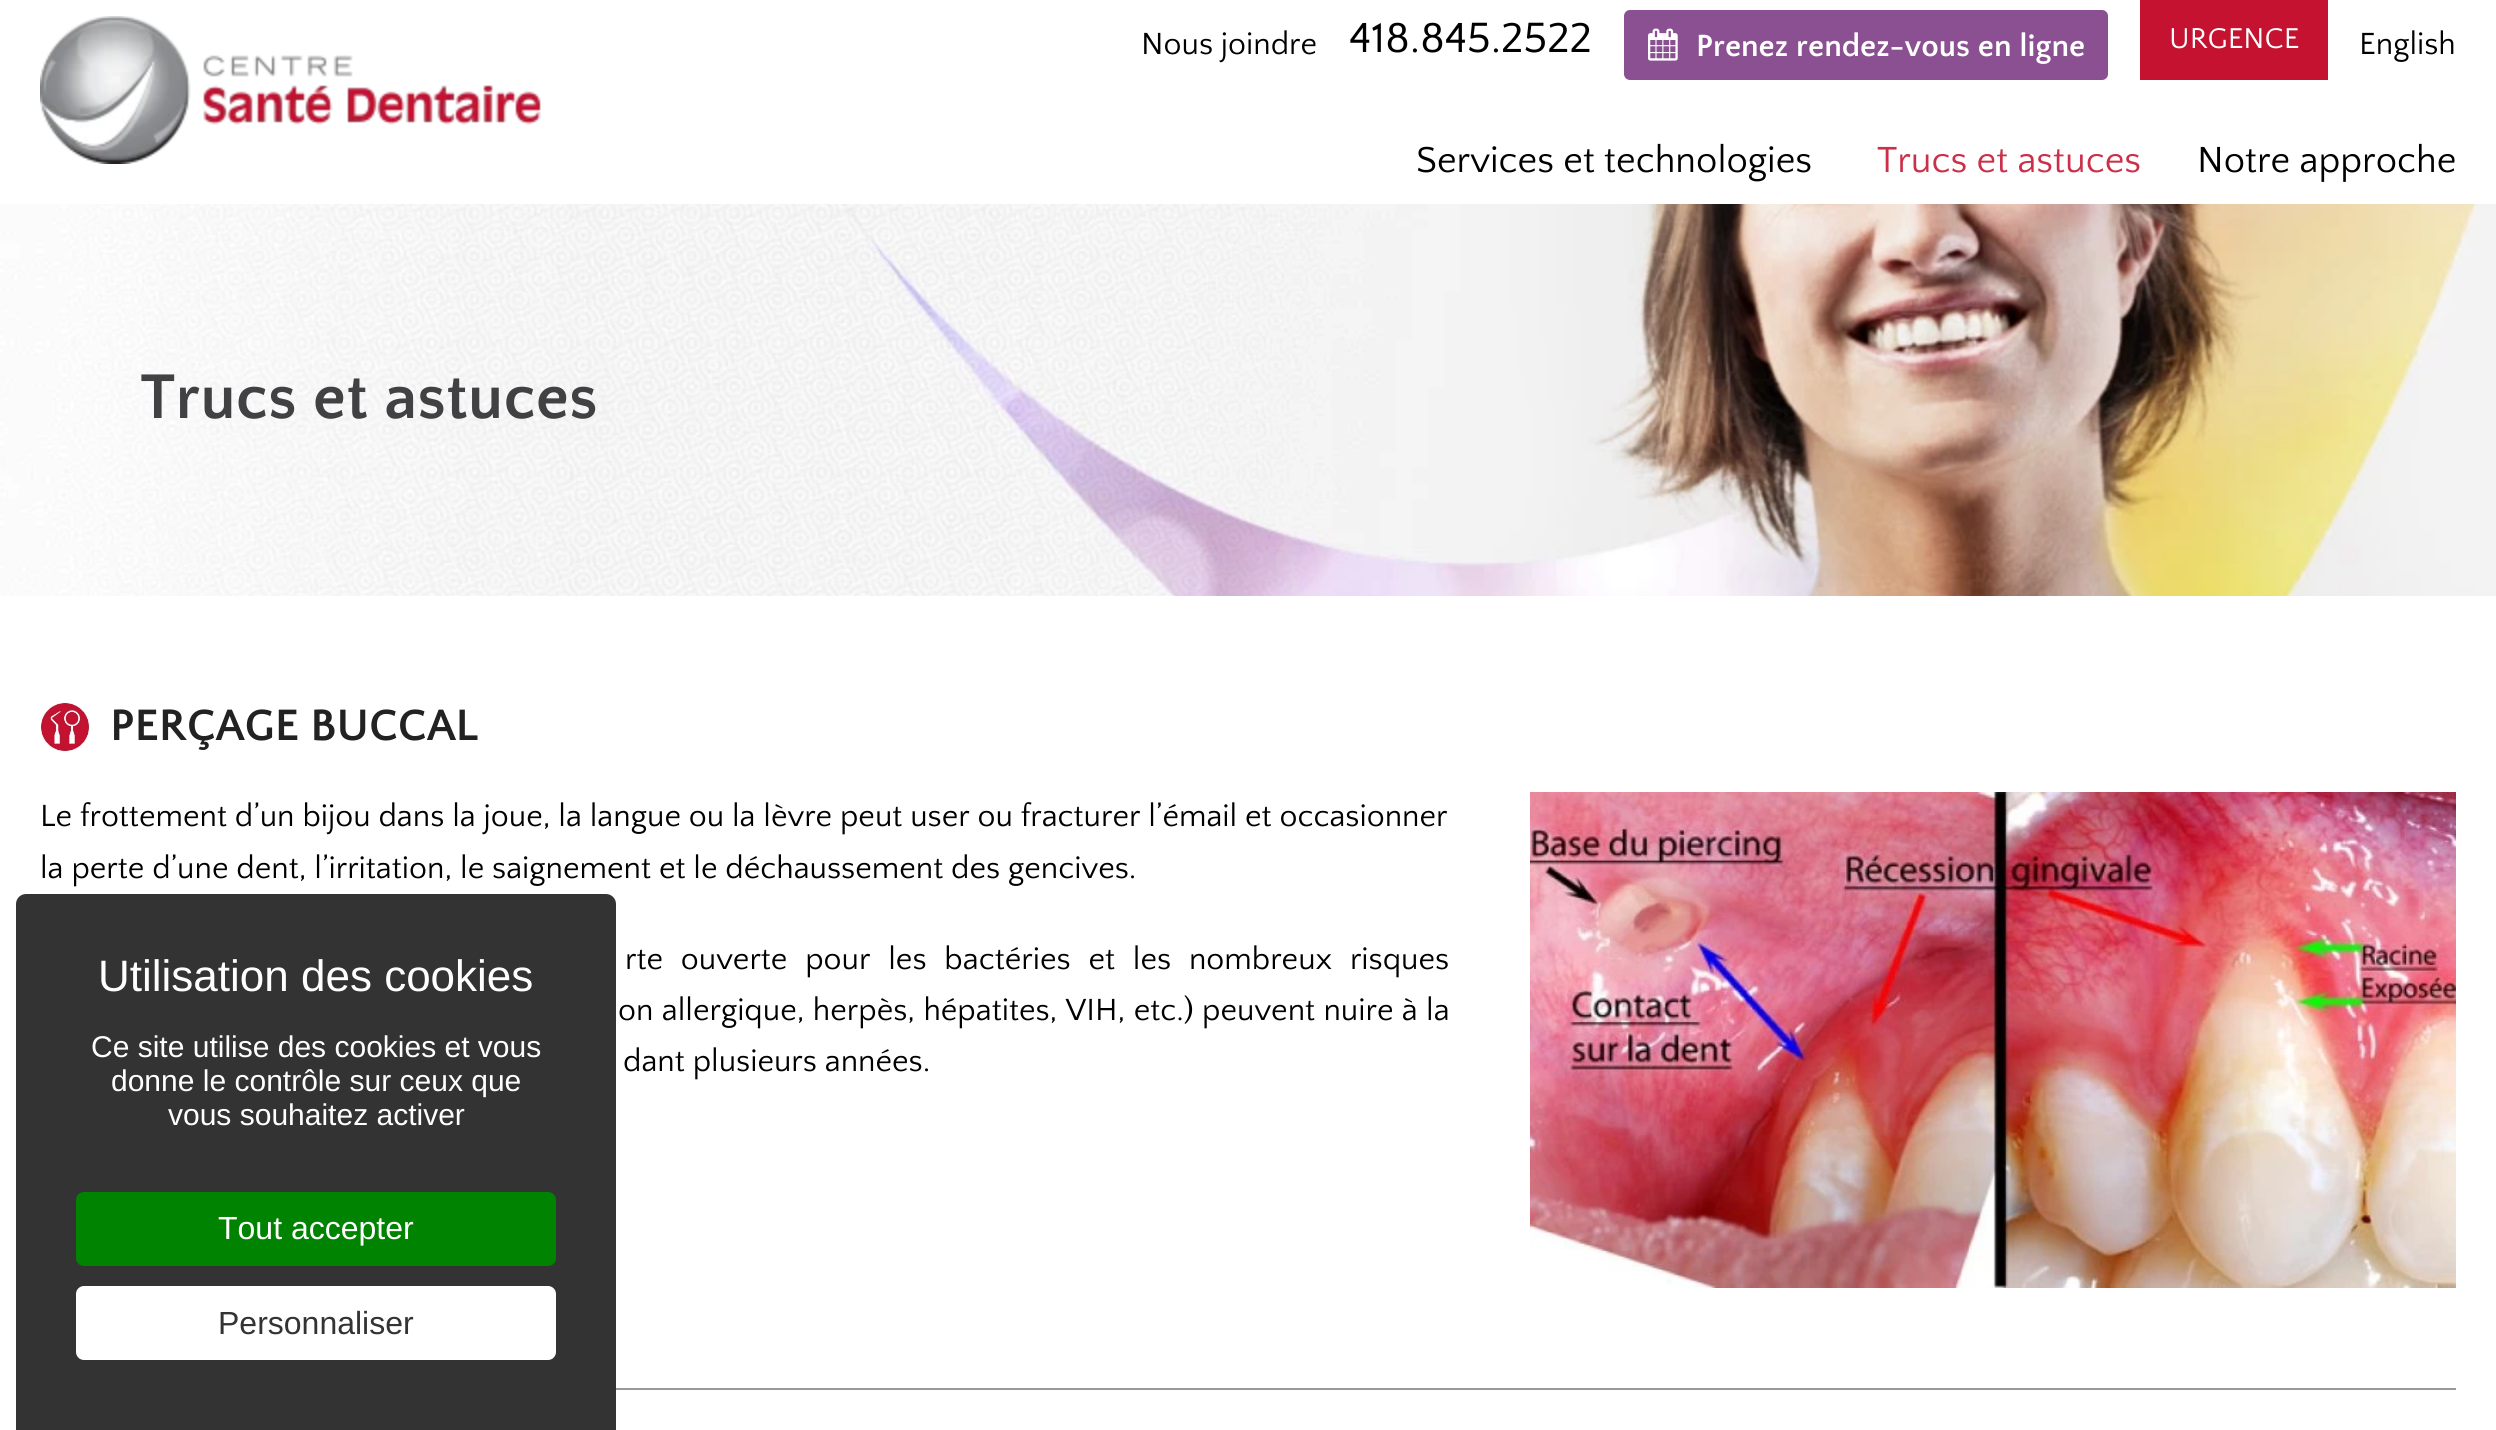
#include <cairo.h>
#include <math.h>
#include <stddef.h>


static void set_color(cairo_t *cr, unsigned color) {
    cairo_set_source_rgb(cr, (color >> 16) / 255.0, (color >> 8 & 255) / 255.0, (color & 255) / 255.0);
}

static void draw_text(cairo_t *cr, double x, double y, const char *s, const char *family, double size, int italic, int bold, unsigned color) {
    cairo_select_font_face(cr, family, italic ? CAIRO_FONT_SLANT_ITALIC : CAIRO_FONT_SLANT_NORMAL,
        bold ? CAIRO_FONT_WEIGHT_BOLD : CAIRO_FONT_WEIGHT_NORMAL);
    cairo_set_font_size(cr, size);
    set_color(cr, color);
    cairo_move_to(cr, x, y);
    cairo_show_text(cr, s);
}

static void draw_spaced(cairo_t *cr, double x, double y, const char *s, double letter, double word) {
    cairo_move_to(cr, x, y);
    while (*s) {
        char ch[5] = {0};
        int n = 0;
        do ch[n++] = *s++; while ((*s & 0xC0) == 0x80);
        cairo_show_text(cr, ch);
        cairo_rel_move_to(cr, letter + word * (*ch == ' '), 0);
    }
}

static void fill_rect(cairo_t *cr, double x, double y, double w, double h, unsigned color) {
    set_color(cr, color);
    cairo_rectangle(cr, x, y, w, h);
    cairo_fill(cr);
}

static void rounded_rect(cairo_t *cr, double x, double y, double w, double h, double r) {
    cairo_new_sub_path(cr);
    cairo_arc(cr, x + w - r, y + h - r, r, 0, M_PI / 2);
    cairo_arc(cr, x + r, y + h - r, r, M_PI / 2, M_PI);
    cairo_arc(cr, x + r, y + r, r, M_PI, 1.5 * M_PI);
    cairo_arc(cr, x + w - r, y + r, r, 1.5 * M_PI, 2 * M_PI);
    cairo_close_path(cr);
}

static void draw_image(cairo_t *cr, const char *path, double x, double y, double w, double h) {
    cairo_surface_t *image = cairo_image_surface_create_from_png(path);
    cairo_save(cr);
    cairo_set_source_surface(cr, image, x, y);
    cairo_rectangle(cr, x, y, w, h);
    cairo_fill(cr);
    cairo_restore(cr);
    cairo_surface_destroy(image);
}

int main(void) {
    cairo_surface_t *surface = cairo_image_surface_create(CAIRO_FORMAT_RGB24, 2496, 1430);
    cairo_t *cr = cairo_create(surface);
    cairo_font_options_t *options = cairo_font_options_create();
    cairo_font_options_set_hint_metrics(options, CAIRO_HINT_METRICS_OFF);
    cairo_font_options_set_hint_style(options, CAIRO_HINT_STYLE_NONE);
    cairo_set_font_options(cr, options);
    cairo_set_miter_limit(cr, 4);
    set_color(cr, 0xFFFFFF);
    cairo_paint(cr);
    draw_image(cr, "assets/img1.png", 40, 16, 501, 148);
    draw_text(cr, 1141, 54, "Nous joindre", "Quattrocento Sans", 32, 0, 0, 0x000000);
    draw_text(cr, 1349, 52, "418.845.2522", "Quattrocento Sans", 44, 0, 0, 0x000000);
    set_color(cr, 0x8A5091);
    rounded_rect(cr, 1624, 10, 484, 70, 6);
    cairo_fill(cr);
    draw_image(cr, "assets/img2.png", 1648, 28, 30, 33);
    draw_text(cr, 1696, 56, "Prenez rendez-vous en ligne", "Quattrocento Sans", 32, 0, 1, 0xFFFFFF);
    fill_rect(cr, 2140, 0, 188, 80, 0xC41230);
    draw_text(cr, 2169, 48, "URGENCE", "Quattrocento Sans", 30, 0, 0, 0xFFFFFF);
    draw_text(cr, 2359, 54, "English", "Quattrocento Sans", 32, 0, 0, 0x000000);
    draw_text(cr, 1416, 172, "Services et technologies", "Quattrocento Sans", 38, 0, 0, 0x000000);
    draw_text(cr, 1877, 172, "Trucs et astuces", "Quattrocento Sans", 38, 0, 0, 0xCB2F49);
    draw_text(cr, 2197, 172, "Notre approche", "Quattrocento Sans", 38, 0, 0, 0x000000);
    fill_rect(cr, 2478, 204, 18, 392, 0xF3F3F4);
    draw_image(cr, "assets/img3.png", 0, 204, 2478, 392);
    draw_text(cr, 140, 418, "Trucs et astuces", "Quattrocento Sans", 66, 0, 1, 0x414042);
    draw_image(cr, "assets/img4.png", 40, 702, 50, 50);
    draw_text(cr, 110, 740, "PERÇAGE BUCCAL", "Quattrocento Sans", 46, 0, 1, 0x222222);
    draw_text(cr, 40, 826, "Le frottement d’un bijou dans la joue, la langue ou la lèvre peut user ou fracturer l’émail et occasionner", "Quattrocento Sans", 32, 0, 0, 0x000000);
    draw_text(cr, 40, 878, "la perte d’une dent, l’irritation, le saignement et le déchaussement des gencives.", "Quattrocento Sans", 32, 0, 0, 0x000000);
    draw_spaced(cr, 625, 969, "rte ouverte pour les bactéries et les nombreux risques", 0, 10);
    draw_spaced(cr, 618, 1020, "on allergique, herpès, hépatites, VIH, etc.) peuvent nuire à la", 0, 0.5);
    draw_text(cr, 623, 1071, "dant plusieurs années.", "Quattrocento Sans", 32, 0, 0, 0x000000);
    draw_image(cr, "assets/img5.png", 1530, 792, 926, 496);
    fill_rect(cr, 616, 1388, 1840, 2, 0x999999);
    set_color(cr, 0x333333);
    cairo_new_path(cr);
    cairo_move_to(cr, 26, 894);
    cairo_line_to(cr, 606, 894);
    cairo_curve_to(cr, 611.5, 894, 616, 898.5, 616, 904);
    cairo_line_to(cr, 616, 1430);
    cairo_line_to(cr, 16, 1430);
    cairo_line_to(cr, 16, 904);
    cairo_curve_to(cr, 16, 898.5, 20.5, 894, 26, 894);
    cairo_close_path(cr);
    cairo_fill(cr);
    draw_text(cr, 98, 991, "Utilisation des cookies", "Liberation Sans", 44, 0, 0, 0xFFFFFF);
    draw_text(cr, 91, 1057, "Ce site utilise des cookies et vous", "Liberation Sans", 30, 0, 0, 0xFFFFFF);
    draw_text(cr, 111, 1091, "donne le contrôle sur ceux que", "Liberation Sans", 30, 0, 0, 0xFFFFFF);
    draw_text(cr, 168, 1125, "vous souhaitez activer", "Liberation Sans", 30, 0, 0, 0xFFFFFF);
    set_color(cr, 0x008300);
    rounded_rect(cr, 76, 1192, 480, 74, 8);
    cairo_fill(cr);
    draw_text(cr, 218, 1239, "Tout accepter", "Liberation Sans", 32, 0, 0, 0xFFFFFF);
    rounded_rect(cr, 76, 1286, 480, 74, 8);
    cairo_fill(cr);
    draw_text(cr, 218, 1334, "Personnaliser", "Liberation Sans", 32, 0, 0, 0x333333);
    cairo_surface_write_to_png(surface, "output.png");
    cairo_font_options_destroy(options);
    cairo_destroy(cr);
    cairo_surface_destroy(surface);
    return 0;
}
